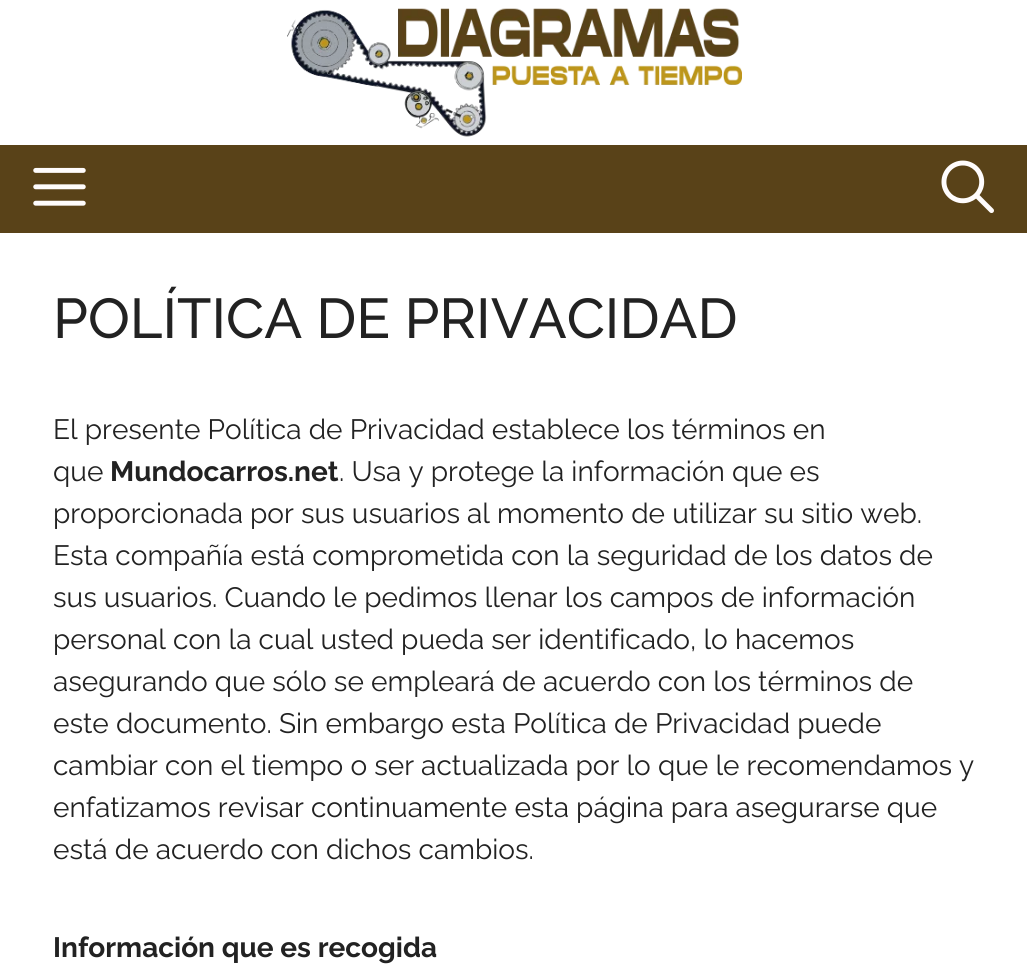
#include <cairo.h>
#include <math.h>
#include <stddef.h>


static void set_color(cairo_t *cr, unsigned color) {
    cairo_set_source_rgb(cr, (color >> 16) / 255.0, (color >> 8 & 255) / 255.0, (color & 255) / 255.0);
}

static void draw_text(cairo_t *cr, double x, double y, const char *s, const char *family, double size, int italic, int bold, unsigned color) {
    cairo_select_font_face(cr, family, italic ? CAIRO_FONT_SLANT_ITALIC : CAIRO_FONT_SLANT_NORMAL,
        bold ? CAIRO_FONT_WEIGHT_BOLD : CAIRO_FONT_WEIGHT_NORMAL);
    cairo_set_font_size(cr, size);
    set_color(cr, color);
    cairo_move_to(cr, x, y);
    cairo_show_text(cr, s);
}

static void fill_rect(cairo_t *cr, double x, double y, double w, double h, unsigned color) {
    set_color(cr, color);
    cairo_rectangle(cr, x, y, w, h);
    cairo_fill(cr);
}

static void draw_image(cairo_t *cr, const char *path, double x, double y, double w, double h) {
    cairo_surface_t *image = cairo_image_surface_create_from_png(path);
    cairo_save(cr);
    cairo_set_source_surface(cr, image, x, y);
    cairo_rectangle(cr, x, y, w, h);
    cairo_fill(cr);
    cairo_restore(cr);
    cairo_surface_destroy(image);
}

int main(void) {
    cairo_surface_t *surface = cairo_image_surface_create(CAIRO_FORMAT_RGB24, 1027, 977);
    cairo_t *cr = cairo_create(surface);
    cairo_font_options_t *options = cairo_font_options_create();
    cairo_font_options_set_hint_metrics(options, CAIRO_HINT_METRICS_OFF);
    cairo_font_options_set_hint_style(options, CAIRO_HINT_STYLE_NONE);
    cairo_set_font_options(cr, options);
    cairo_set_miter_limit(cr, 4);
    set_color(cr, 0x594218);
    cairo_paint(cr);
    fill_rect(cr, 0, 0, 1027, 145, 0xFFFFFF);
    draw_image(cr, "assets/img1.png", 287, 8, 455, 129);
    draw_image(cr, "assets/img2.png", 33, 167, 53, 39);
    draw_image(cr, "assets/img3.png", 941, 160, 53, 53);
    fill_rect(cr, 0, 233, 1027, 744, 0xFFFFFF);
    draw_text(cr, 53, 338, "POLÍTICA DE PRIVACIDAD", "Raleway Medium", 56, 0, 0, 0x222222);
    draw_text(cr, 53, 439, "El presente Política de Privacidad establece los términos en", "Raleway", 28, 0, 0, 0x222222);
    draw_text(cr, 53, 481, "que", "Raleway", 28, 0, 0, 0x222222);
    draw_text(cr, 110, 481, "Mundocarros.net", "Raleway", 28, 0, 1, 0x222222);
    draw_text(cr, 339, 481, ". Usa y protege la información que es", "Raleway", 28, 0, 0, 0x222222);
    draw_text(cr, 53, 523, "proporcionada por sus usuarios al momento de utilizar su sitio web.", "Raleway", 28, 0, 0, 0x222222);
    draw_text(cr, 53, 565, "Esta compañía está comprometida con la seguridad de los datos de", "Raleway", 28, 0, 0, 0x222222);
    draw_text(cr, 53, 607, "sus usuarios. Cuando le pedimos llenar los campos de información", "Raleway", 28, 0, 0, 0x222222);
    draw_text(cr, 53, 649, "personal con la cual usted pueda ser identificado, lo hacemos", "Raleway", 28, 0, 0, 0x222222);
    draw_text(cr, 53, 691, "asegurando que sólo se empleará de acuerdo con los términos de", "Raleway", 28, 0, 0, 0x222222);
    draw_text(cr, 53, 733, "este documento. Sin embargo esta Política de Privacidad puede", "Raleway", 28, 0, 0, 0x222222);
    draw_text(cr, 53, 775, "cambiar con el tiempo o ser actualizada por lo que le recomendamos y", "Raleway", 28, 0, 0, 0x222222);
    draw_text(cr, 53, 817, "enfatizamos revisar continuamente esta página para asegurarse que", "Raleway", 28, 0, 0, 0x222222);
    draw_text(cr, 53, 859, "está de acuerdo con dichos cambios.", "Raleway", 28, 0, 0, 0x222222);
    draw_text(cr, 53, 957, "Información que es recogida", "Raleway", 28, 0, 1, 0x222222);
    cairo_surface_write_to_png(surface, "output.png");
    cairo_font_options_destroy(options);
    cairo_destroy(cr);
    cairo_surface_destroy(surface);
    return 0;
}
